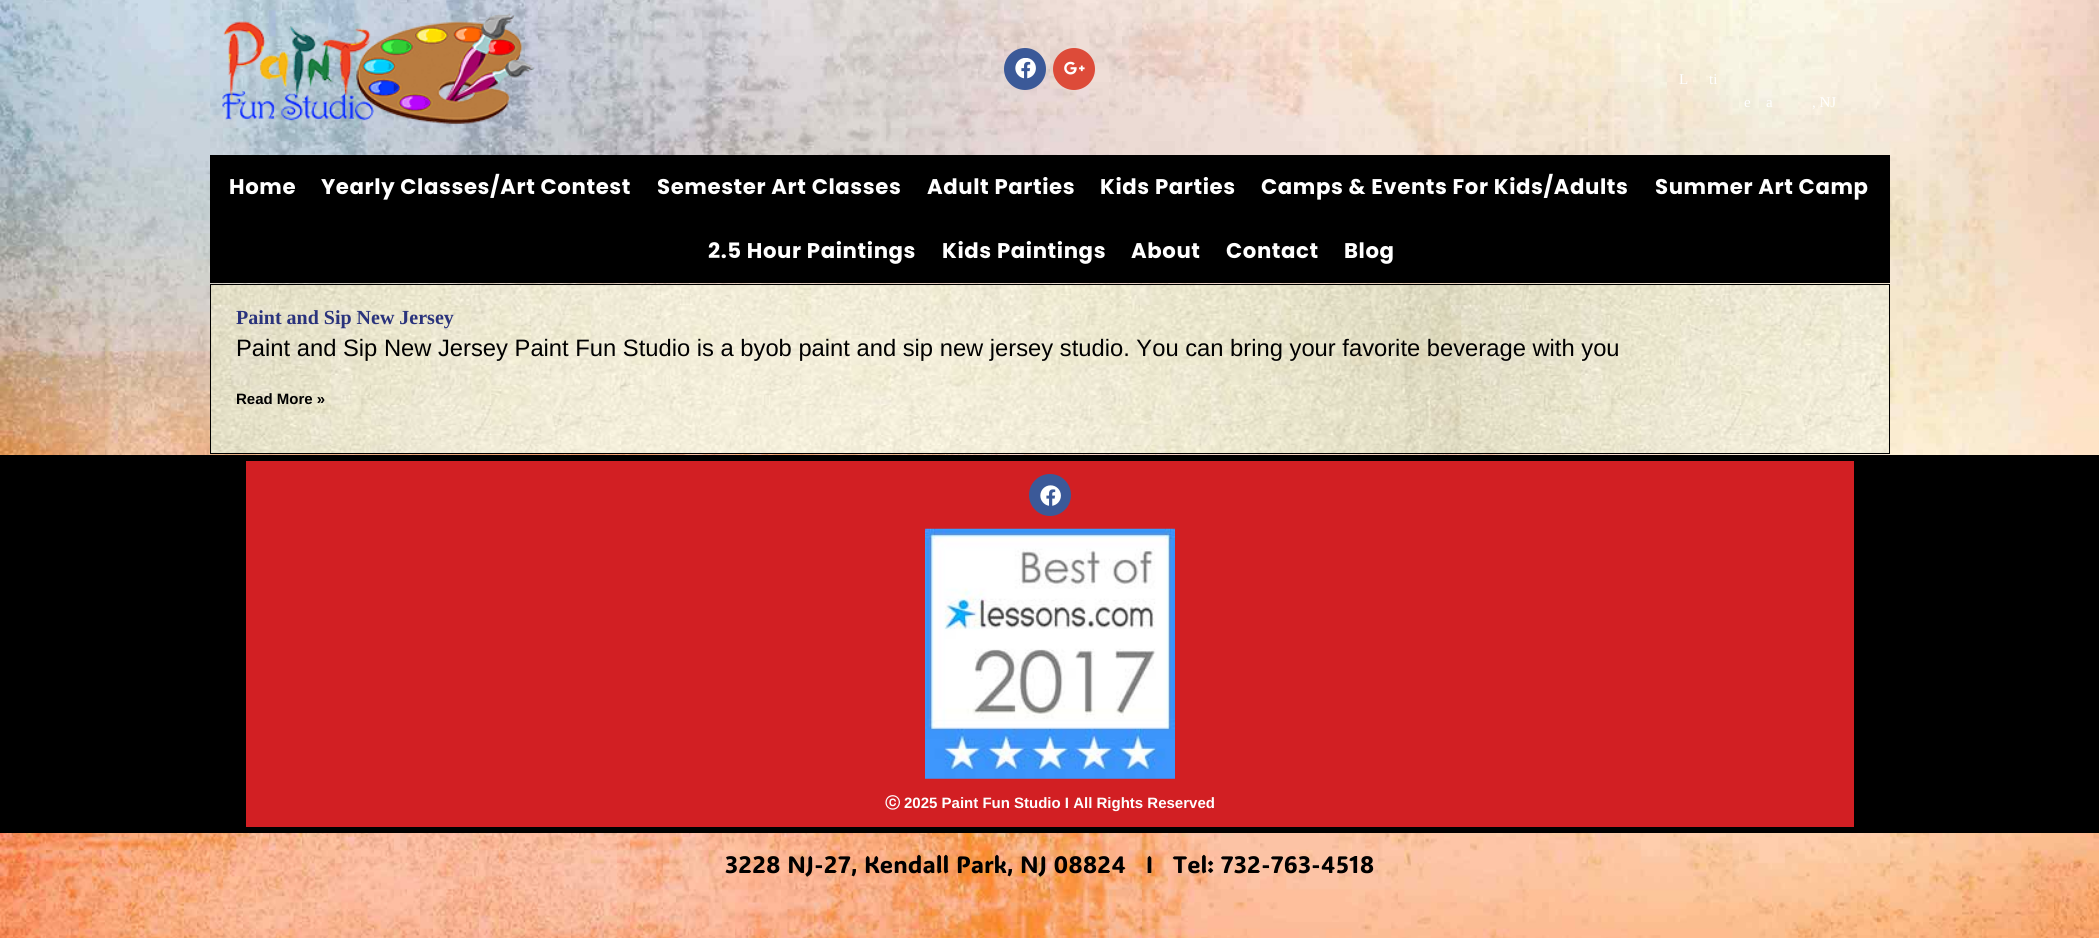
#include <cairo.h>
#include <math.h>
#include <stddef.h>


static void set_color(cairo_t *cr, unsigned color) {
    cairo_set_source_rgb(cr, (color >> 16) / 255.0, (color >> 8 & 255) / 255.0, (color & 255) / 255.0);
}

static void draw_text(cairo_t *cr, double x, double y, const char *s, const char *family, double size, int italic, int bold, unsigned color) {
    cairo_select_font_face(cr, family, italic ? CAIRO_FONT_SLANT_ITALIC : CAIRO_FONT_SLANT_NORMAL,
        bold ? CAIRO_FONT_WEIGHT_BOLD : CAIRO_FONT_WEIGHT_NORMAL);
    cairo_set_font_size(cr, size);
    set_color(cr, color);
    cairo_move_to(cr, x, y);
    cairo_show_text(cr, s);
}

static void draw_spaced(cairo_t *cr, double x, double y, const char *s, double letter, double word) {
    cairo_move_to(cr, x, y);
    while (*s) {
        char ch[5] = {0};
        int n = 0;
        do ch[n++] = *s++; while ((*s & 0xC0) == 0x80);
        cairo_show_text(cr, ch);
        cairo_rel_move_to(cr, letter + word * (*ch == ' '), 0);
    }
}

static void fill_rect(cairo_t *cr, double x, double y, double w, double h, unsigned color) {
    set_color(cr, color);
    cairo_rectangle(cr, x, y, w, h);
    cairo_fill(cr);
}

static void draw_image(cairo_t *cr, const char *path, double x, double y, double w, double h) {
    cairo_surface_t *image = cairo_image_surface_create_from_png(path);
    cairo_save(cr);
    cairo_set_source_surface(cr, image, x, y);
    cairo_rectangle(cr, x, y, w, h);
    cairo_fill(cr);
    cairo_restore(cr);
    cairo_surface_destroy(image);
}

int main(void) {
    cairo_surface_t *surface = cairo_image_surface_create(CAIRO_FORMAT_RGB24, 2099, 938);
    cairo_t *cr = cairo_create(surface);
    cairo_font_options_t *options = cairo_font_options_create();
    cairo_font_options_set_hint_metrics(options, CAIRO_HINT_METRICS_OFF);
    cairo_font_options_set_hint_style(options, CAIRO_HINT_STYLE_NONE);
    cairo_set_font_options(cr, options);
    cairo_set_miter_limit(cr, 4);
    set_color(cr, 0xFFFFFF);
    cairo_paint(cr);
    draw_image(cr, "assets/img1.png", 0, 0, 2099, 938);
    draw_image(cr, "assets/img2.png", 222, 12, 313, 112);
    set_color(cr, 0x3B5998);
    cairo_arc(cr, 1025, 69, 21, 0, 2 * M_PI);
    cairo_fill(cr);
    draw_image(cr, "assets/img3.png", 1015, 58, 21, 21);
    set_color(cr, 0xDD4B39);
    cairo_arc(cr, 1074, 69, 21, 0, 2 * M_PI);
    cairo_fill(cr);
    draw_image(cr, "assets/img4.png", 1064, 61, 21, 14);
    draw_text(cr, 1679, 84, "L", "Liberation Serif", 15, 0, 0, 0xFFFFFF);
    draw_text(cr, 1709, 84, "ti", "Liberation Serif", 15, 0, 0, 0xFFFFFF);
    draw_text(cr, 1744, 107, "e", "Liberation Serif", 15, 0, 0, 0xFFFFFF);
    draw_text(cr, 1766, 107, "a", "Liberation Serif", 15, 0, 0, 0xFFFFFF);
    draw_text(cr, 1812, 107, ", NJ", "Liberation Serif", 15, 0, 0, 0xFFFFFF);
    fill_rect(cr, 210, 155, 1680, 128, 0x000000);
    cairo_select_font_face(cr, "Poppins", CAIRO_FONT_SLANT_NORMAL, CAIRO_FONT_WEIGHT_BOLD);
    cairo_set_font_size(cr, 21.25);
    set_color(cr, 0xFFFFFF);
    draw_spaced(cr, 229, 194, "Home", 0.6, 0);
    draw_spaced(cr, 321, 194, "Yearly Classes/Art Contest", 0.6, 0);
    draw_spaced(cr, 657, 194, "Semester Art Classes", 0.6, 0);
    draw_spaced(cr, 927, 194, "Adult Parties", 0.6, 0);
    draw_spaced(cr, 1100, 194, "Kids Parties", 0.6, 0);
    draw_spaced(cr, 1261, 194, "Camps & Events For Kids/Adults", 0.6, 0);
    draw_spaced(cr, 1655, 194, "Summer Art Camp", 0.6, 0);
    draw_spaced(cr, 708, 258, "2.5 Hour Paintings", 0.6, 0);
    draw_spaced(cr, 942, 258, "Kids Paintings", 0.6, 0);
    draw_spaced(cr, 1131, 258, "About", 0.6, 0);
    draw_spaced(cr, 1226, 258, "Contact", 0.6, 0);
    draw_spaced(cr, 1344, 258, "Blog", 0.6, 0);
    draw_image(cr, "assets/img5.png", 210, 283, 1680, 170);
    cairo_rectangle(cr, 210.5, 284.5, 1679, 169);
    set_color(cr, 0x000000);
    cairo_set_line_width(cr, 1);
    cairo_stroke(cr);
    draw_text(cr, 236, 324, "Paint and Sip New Jersey", "Liberation Serif", 20, 0, 1, 0x2A337C);
    draw_text(cr, 236, 356, "Paint and Sip New Jersey Paint Fun Studio is a byob paint and sip new jersey studio. You can bring your favorite beverage with you", "Liberation Sans", 23.75, 0, 0, 0x000000);
    draw_text(cr, 236, 404, "Read More »", "Liberation Sans", 15, 0, 1, 0x000000);
    fill_rect(cr, 0, 455, 2099, 378, 0x000000);
    fill_rect(cr, 246, 461, 1608, 366, 0xD21F23);
    set_color(cr, 0x3B5998);
    cairo_new_path(cr);
    cairo_arc(cr, 1050, 495, 21, 0, 2 * M_PI);
    cairo_fill(cr);
    draw_image(cr, "assets/img6.png", 1040, 485, 21, 21);
    draw_image(cr, "assets/img7.png", 925, 528, 250, 251);
    draw_text(cr, 885, 808, "ⓒ", "WenQuanYi Zen Hei", 15, 0, 1, 0xFFFFFF);
    draw_text(cr, 904, 808, "2025 Paint Fun Studio I All Rights Reserved", "Liberation Sans", 15, 0, 1, 0xFFFFFF);
    draw_text(cr, 725, 873, "3228 NJ-27, Kendall Park, NJ 08824   I   Tel: 732-763-4518", "ADLaM Display", 23.75, 0, 0, 0x000000);
    cairo_surface_write_to_png(surface, "output.png");
    cairo_font_options_destroy(options);
    cairo_destroy(cr);
    cairo_surface_destroy(surface);
    return 0;
}
